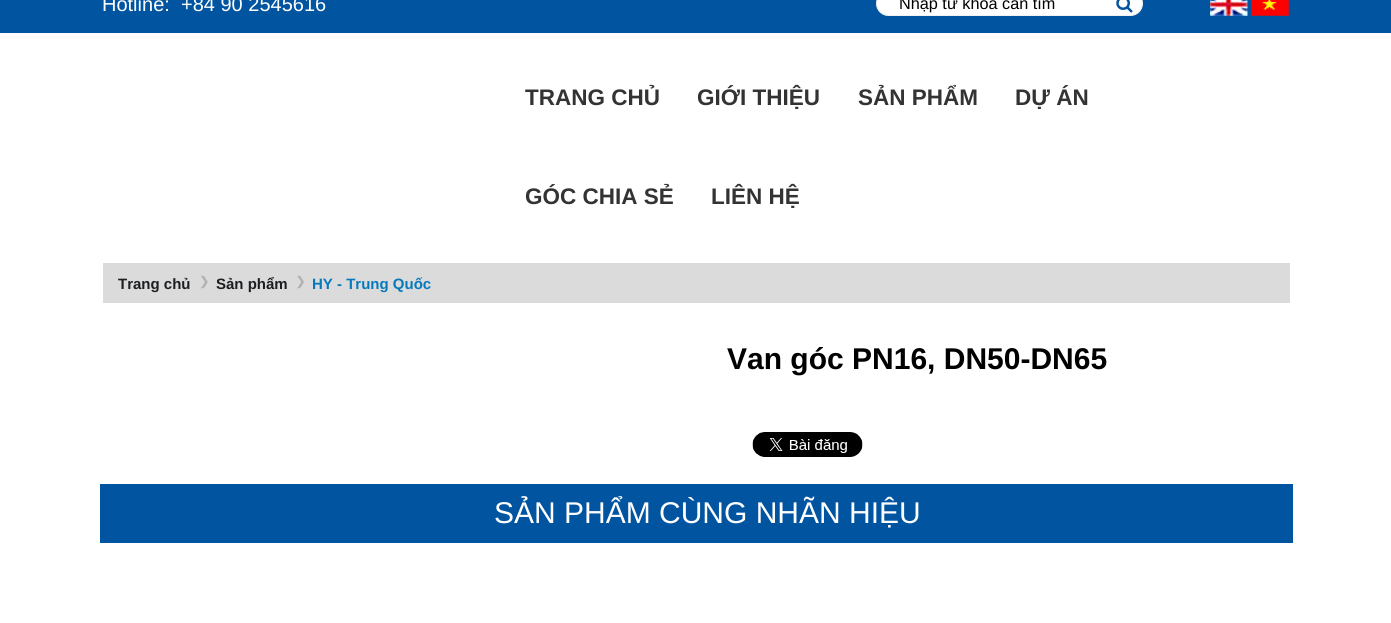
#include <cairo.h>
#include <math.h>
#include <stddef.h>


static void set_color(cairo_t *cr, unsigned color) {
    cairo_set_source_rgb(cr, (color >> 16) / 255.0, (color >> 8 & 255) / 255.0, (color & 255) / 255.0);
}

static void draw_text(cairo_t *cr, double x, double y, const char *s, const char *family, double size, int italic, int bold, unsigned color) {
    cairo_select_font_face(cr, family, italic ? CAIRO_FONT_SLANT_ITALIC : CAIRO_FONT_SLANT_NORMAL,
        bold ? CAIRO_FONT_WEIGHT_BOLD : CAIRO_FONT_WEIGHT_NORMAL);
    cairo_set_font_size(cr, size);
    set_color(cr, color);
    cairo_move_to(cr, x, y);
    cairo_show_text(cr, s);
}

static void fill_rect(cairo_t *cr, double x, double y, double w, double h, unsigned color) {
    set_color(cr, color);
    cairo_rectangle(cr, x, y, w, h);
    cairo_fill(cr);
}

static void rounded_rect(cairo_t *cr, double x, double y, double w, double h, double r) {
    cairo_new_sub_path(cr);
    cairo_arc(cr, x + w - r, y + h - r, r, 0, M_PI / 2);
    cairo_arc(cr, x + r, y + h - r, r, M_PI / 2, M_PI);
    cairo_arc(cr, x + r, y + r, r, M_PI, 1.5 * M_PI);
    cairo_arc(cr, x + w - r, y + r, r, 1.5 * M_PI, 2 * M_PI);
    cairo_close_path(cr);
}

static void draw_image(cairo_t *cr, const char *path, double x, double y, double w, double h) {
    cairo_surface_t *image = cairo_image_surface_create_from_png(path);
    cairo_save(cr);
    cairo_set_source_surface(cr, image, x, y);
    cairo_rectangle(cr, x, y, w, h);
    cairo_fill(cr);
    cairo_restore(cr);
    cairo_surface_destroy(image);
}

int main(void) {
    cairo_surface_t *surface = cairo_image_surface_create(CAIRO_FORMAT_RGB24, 1391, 623);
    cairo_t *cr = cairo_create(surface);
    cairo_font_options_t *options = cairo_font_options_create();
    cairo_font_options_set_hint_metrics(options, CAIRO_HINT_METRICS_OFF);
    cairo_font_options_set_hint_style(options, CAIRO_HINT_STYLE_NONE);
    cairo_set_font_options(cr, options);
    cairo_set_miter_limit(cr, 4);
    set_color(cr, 0xFFFFFF);
    cairo_paint(cr);
    fill_rect(cr, 0, 0, 1391, 33, 0x0154A0);
    draw_text(cr, 102, 11, "Hotline:", "Liberation Sans", 20, 0, 0, 0xFFFFFF);
    draw_text(cr, 181, 11, "+84 90 2545616", "Liberation Sans", 20, 0, 0, 0xFFFFFF);
    rounded_rect(cr, 876.5, -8.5, 266, 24, 12);
    cairo_fill_preserve(cr);
    set_color(cr, 0xF1F1F1);
    cairo_set_line_width(cr, 1);
    cairo_stroke(cr);
    draw_text(cr, 899, 9, "Nhập từ khóa cần tìm", "Liberation Sans", 16.25, 0, 0, 0x000000);
    draw_image(cr, "assets/img1.png", 1116, 0, 17, 13);
    draw_image(cr, "assets/img2.png", 1210, 0, 38, 16);
    draw_image(cr, "assets/img3.png", 1251, 0, 38, 16);
    draw_text(cr, 525, 105, "TRANG CHỦ", "Liberation Sans", 22.5, 0, 1, 0x333333);
    draw_text(cr, 697, 105, "GIỚI THIỆU", "Liberation Sans", 22.5, 0, 1, 0x333333);
    draw_text(cr, 858, 105, "SẢN PHẨM", "Liberation Sans", 22.5, 0, 1, 0x333333);
    draw_text(cr, 1015, 105, "DỰ ÁN", "Liberation Sans", 22.5, 0, 1, 0x333333);
    draw_text(cr, 525, 204, "GÓC CHIA SẺ", "Liberation Sans", 22.5, 0, 1, 0x333333);
    draw_text(cr, 711, 204, "LIÊN HỆ", "Liberation Sans", 22.5, 0, 1, 0x333333);
    fill_rect(cr, 103, 263, 1187, 40, 0xDBDBDB);
    draw_text(cr, 118, 289, "Trang chủ", "Liberation Sans", 15, 0, 1, 0x1C1F22);
    draw_image(cr, "assets/img4.png", 201, 275, 7, 14);
    draw_text(cr, 216, 289, "Sản phẩm", "Liberation Sans", 15, 0, 1, 0x1C1F22);
    draw_image(cr, "assets/img5.png", 297, 275, 7, 14);
    draw_text(cr, 312, 289, "HY - Trung Quốc", "Liberation Sans", 15, 0, 1, 0x0579BB);
    draw_text(cr, 727, 369, "Van góc PN16, DN50-DN65", "Liberation Sans", 30, 0, 1, 0x000000);
    draw_image(cr, "assets/img6.png", 752, 432, 111, 25);
    fill_rect(cr, 100, 484, 1193, 59, 0x0154A0);
    draw_text(cr, 494, 523, "SẢN PHẨM CÙNG NHÃN HIỆU", "Liberation Sans", 30, 0, 0, 0xFFFFFF);
    cairo_surface_write_to_png(surface, "output.png");
    cairo_font_options_destroy(options);
    cairo_destroy(cr);
    cairo_surface_destroy(surface);
    return 0;
}
